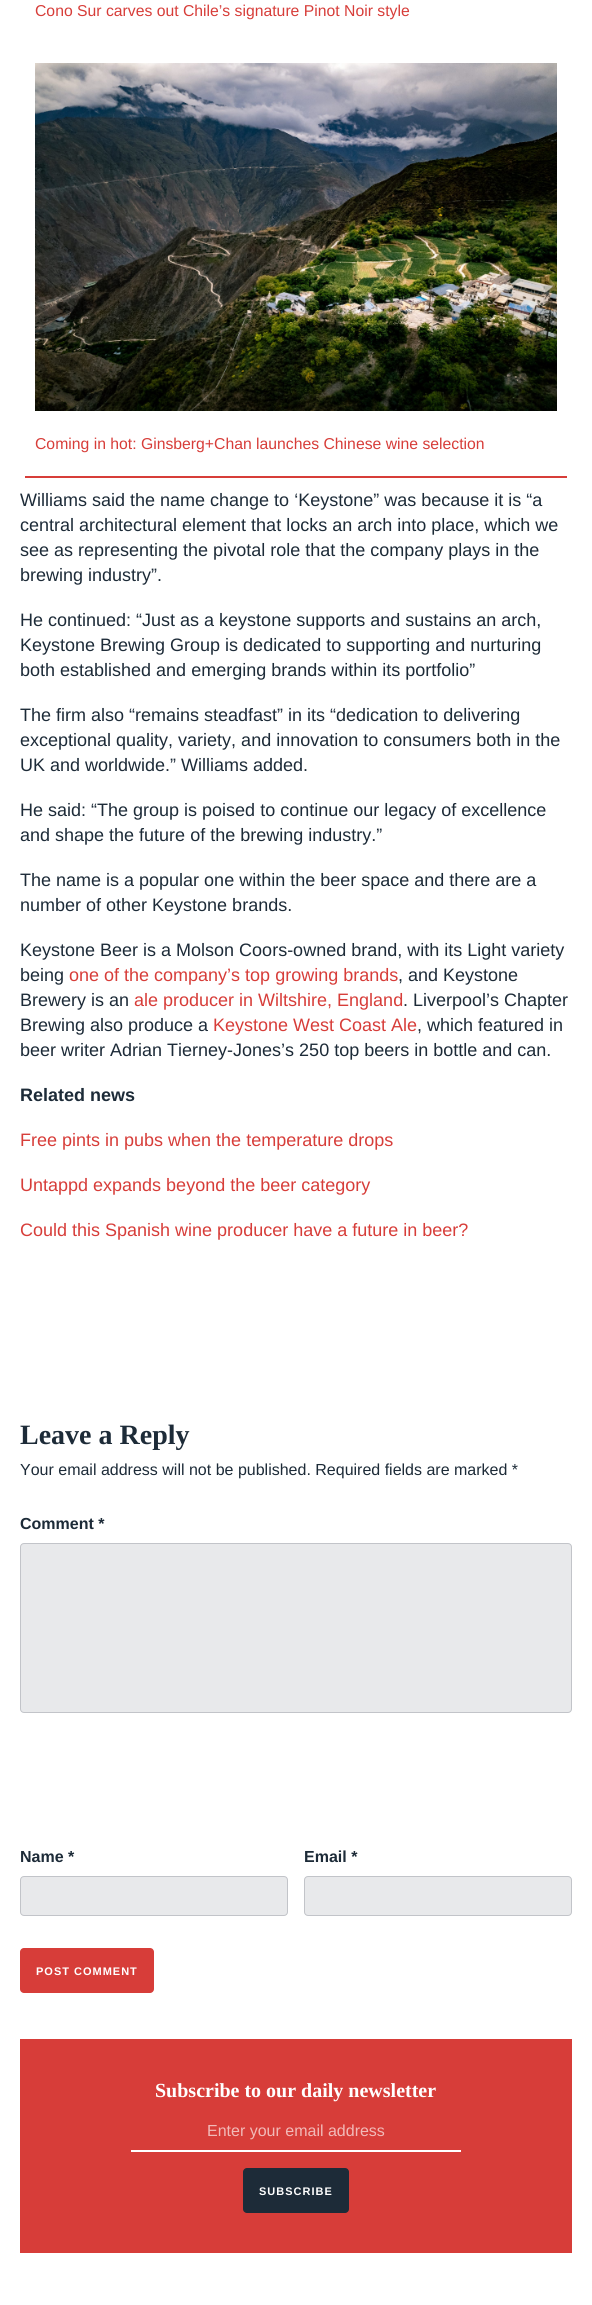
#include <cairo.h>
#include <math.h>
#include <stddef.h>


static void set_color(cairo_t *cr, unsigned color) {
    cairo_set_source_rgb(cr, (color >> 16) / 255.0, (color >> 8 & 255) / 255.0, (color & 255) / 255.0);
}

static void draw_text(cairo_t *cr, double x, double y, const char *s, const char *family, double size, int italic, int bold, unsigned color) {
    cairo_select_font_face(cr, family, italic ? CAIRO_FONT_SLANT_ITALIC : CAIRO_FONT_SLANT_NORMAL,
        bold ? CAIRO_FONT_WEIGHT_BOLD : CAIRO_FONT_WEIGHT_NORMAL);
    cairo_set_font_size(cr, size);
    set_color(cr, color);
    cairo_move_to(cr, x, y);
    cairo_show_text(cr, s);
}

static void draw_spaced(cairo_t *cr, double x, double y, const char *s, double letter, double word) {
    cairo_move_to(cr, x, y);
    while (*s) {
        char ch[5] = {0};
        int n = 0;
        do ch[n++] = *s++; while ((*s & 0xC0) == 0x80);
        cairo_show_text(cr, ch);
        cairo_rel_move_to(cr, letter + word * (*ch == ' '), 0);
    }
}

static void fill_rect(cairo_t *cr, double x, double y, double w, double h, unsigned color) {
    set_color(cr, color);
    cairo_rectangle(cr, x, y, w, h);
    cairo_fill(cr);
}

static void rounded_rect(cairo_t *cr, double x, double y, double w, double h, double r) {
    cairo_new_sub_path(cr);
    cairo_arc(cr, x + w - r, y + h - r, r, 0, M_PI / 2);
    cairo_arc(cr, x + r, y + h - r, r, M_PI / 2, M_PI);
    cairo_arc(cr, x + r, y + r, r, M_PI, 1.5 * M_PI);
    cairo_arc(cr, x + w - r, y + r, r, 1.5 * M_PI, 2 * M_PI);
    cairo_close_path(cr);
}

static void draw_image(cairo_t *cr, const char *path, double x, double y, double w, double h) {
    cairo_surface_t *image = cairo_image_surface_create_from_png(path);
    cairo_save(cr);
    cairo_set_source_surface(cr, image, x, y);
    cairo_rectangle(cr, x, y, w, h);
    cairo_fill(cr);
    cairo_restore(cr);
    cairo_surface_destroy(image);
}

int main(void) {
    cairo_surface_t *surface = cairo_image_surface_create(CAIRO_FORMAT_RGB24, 592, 2305);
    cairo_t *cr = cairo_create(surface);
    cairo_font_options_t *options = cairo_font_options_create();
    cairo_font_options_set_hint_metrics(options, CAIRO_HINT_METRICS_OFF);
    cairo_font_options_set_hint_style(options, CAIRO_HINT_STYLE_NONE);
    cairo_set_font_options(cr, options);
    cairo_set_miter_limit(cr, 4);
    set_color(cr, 0xFFFFFF);
    cairo_paint(cr);
    fill_rect(cr, 25, 476, 542, 2, 0xD73D39);
    draw_text(cr, 35, 16, "Cono Sur carves out Chile’s signature Pinot Noir style", "Liberation Sans", 15.75, 0, 0, 0xD73D39);
    draw_image(cr, "assets/img1.png", 35, 63, 522, 348);
    draw_text(cr, 35, 449, "Coming in hot: Ginsberg+Chan launches Chinese wine selection", "Liberation Sans", 15.75, 0, 0, 0xD73D39);
    draw_text(cr, 20, 506, "Williams said the name change to ‘Keystone” was because it is “a", "Liberation Sans", 18, 0, 0, 0x1D2B38);
    draw_text(cr, 20, 531, "central architectural element that locks an arch into place, which we", "Liberation Sans", 18, 0, 0, 0x1D2B38);
    draw_text(cr, 20, 556, "see as representing the pivotal role that the company plays in the", "Liberation Sans", 18, 0, 0, 0x1D2B38);
    draw_text(cr, 20, 581, "brewing industry”.", "Liberation Sans", 18, 0, 0, 0x1D2B38);
    draw_text(cr, 20, 626, "He continued: “Just as a keystone supports and sustains an arch,", "Liberation Sans", 18, 0, 0, 0x1D2B38);
    draw_text(cr, 20, 651, "Keystone Brewing Group is dedicated to supporting and nurturing", "Liberation Sans", 18, 0, 0, 0x1D2B38);
    draw_text(cr, 20, 676, "both established and emerging brands within its portfolio”", "Liberation Sans", 18, 0, 0, 0x1D2B38);
    draw_text(cr, 20, 721, "The firm also “remains steadfast” in its “dedication to delivering", "Liberation Sans", 18, 0, 0, 0x1D2B38);
    draw_text(cr, 20, 746, "exceptional quality, variety, and innovation to consumers both in the", "Liberation Sans", 18, 0, 0, 0x1D2B38);
    draw_text(cr, 20, 771, "UK and worldwide.” Williams added.", "Liberation Sans", 18, 0, 0, 0x1D2B38);
    draw_text(cr, 20, 816, "He said: “The group is poised to continue our legacy of excellence", "Liberation Sans", 18, 0, 0, 0x1D2B38);
    draw_text(cr, 20, 841, "and shape the future of the brewing industry.”", "Liberation Sans", 18, 0, 0, 0x1D2B38);
    draw_text(cr, 20, 886, "The name is a popular one within the beer space and there are a", "Liberation Sans", 18, 0, 0, 0x1D2B38);
    draw_text(cr, 20, 911, "number of other Keystone brands.", "Liberation Sans", 18, 0, 0, 0x1D2B38);
    draw_text(cr, 20, 956, "Keystone Beer is a Molson Coors-owned brand, with its Light variety", "Liberation Sans", 18, 0, 0, 0x1D2B38);
    draw_text(cr, 20, 981, "being", "Liberation Sans", 18, 0, 0, 0x1D2B38);
    draw_text(cr, 69, 981, "one of the company’s top growing brands", "Liberation Sans", 18, 0, 0, 0xD73D39);
    draw_text(cr, 398, 981, ", and Keystone", "Liberation Sans", 18, 0, 0, 0x1D2B38);
    draw_text(cr, 20, 1006, "Brewery is an", "Liberation Sans", 18, 0, 0, 0x1D2B38);
    draw_text(cr, 134, 1006, "ale producer in Wiltshire, England", "Liberation Sans", 18, 0, 0, 0xD73D39);
    draw_text(cr, 403, 1006, ". Liverpool’s Chapter", "Liberation Sans", 18, 0, 0, 0x1D2B38);
    draw_text(cr, 20, 1031, "Brewing also produce a", "Liberation Sans", 18, 0, 0, 0x1D2B38);
    draw_text(cr, 213, 1031, "Keystone West Coast Ale", "Liberation Sans", 18, 0, 0, 0xD73D39);
    draw_text(cr, 417, 1031, ", which featured in", "Liberation Sans", 18, 0, 0, 0x1D2B38);
    draw_text(cr, 20, 1056, "beer writer Adrian Tierney-Jones’s 250 top beers in bottle and can.", "Liberation Sans", 18, 0, 0, 0x1D2B38);
    draw_text(cr, 20, 1101, "Related news", "Liberation Sans", 18, 0, 1, 0x1D2B38);
    draw_text(cr, 20, 1146, "Free pints in pubs when the temperature drops", "Liberation Sans", 18, 0, 0, 0xD73D39);
    draw_text(cr, 20, 1191, "Untappd expands beyond the beer category", "Liberation Sans", 18, 0, 0, 0xD73D39);
    draw_text(cr, 20, 1236, "Could this Spanish wine producer have a future in beer?", "Liberation Sans", 18, 0, 0, 0xD73D39);
    draw_text(cr, 20, 1444, "Leave a Reply", "Liberation Serif", 28, 0, 1, 0x1D2B38);
    draw_text(cr, 20, 1475, "Your email address will not be published. Required fields are marked *", "Liberation Sans", 16, 0, 0, 0x1D2B38);
    draw_text(cr, 20, 1529, "Comment *", "Liberation Sans", 16, 0, 1, 0x1D2B38);
    set_color(cr, 0xE8E9EB);
    rounded_rect(cr, 20.5, 1543.5, 551, 169, 3.5);
    cairo_fill_preserve(cr);
    set_color(cr, 0xC2C4C9);
    cairo_set_line_width(cr, 1);
    cairo_stroke(cr);
    draw_text(cr, 20, 1862, "Name *", "Liberation Sans", 16, 0, 1, 0x1D2B38);
    set_color(cr, 0xE8E9EB);
    rounded_rect(cr, 20.5, 1876.5, 267, 39, 3.5);
    cairo_fill_preserve(cr);
    set_color(cr, 0xC2C4C9);
    cairo_stroke(cr);
    draw_text(cr, 304, 1862, "Email *", "Liberation Sans", 16, 0, 1, 0x1D2B38);
    set_color(cr, 0xE8E9EB);
    rounded_rect(cr, 304.5, 1876.5, 267, 39, 3.5);
    cairo_fill_preserve(cr);
    set_color(cr, 0xC2C4C9);
    cairo_stroke(cr);
    set_color(cr, 0xD73D39);
    rounded_rect(cr, 20, 1948, 134, 45, 4);
    cairo_fill(cr);
    cairo_set_font_size(cr, 11);
    set_color(cr, 0xFFFFFF);
    draw_spaced(cr, 36, 1975, "POST COMMENT", 1, 0);
    fill_rect(cr, 20, 2039, 552, 214, 0xD73D39);
    draw_text(cr, 155, 2097, "Subscribe to our daily newsletter", "Liberation Serif", 20, 0, 1, 0xFFFFFF);
    fill_rect(cr, 131, 2150, 330, 2, 0xFFFFFF);
    draw_text(cr, 207, 2136, "Enter your email address", "Liberation Sans", 16, 0, 0, 0xF1BAB8);
    set_color(cr, 0x1D2B38);
    rounded_rect(cr, 243, 2168, 106, 45, 4);
    cairo_fill(cr);
    cairo_select_font_face(cr, "Liberation Sans", CAIRO_FONT_SLANT_NORMAL, CAIRO_FONT_WEIGHT_BOLD);
    cairo_set_font_size(cr, 11);
    set_color(cr, 0xFFFFFF);
    draw_spaced(cr, 259, 2195, "SUBSCRIBE", 1, 0);
    cairo_surface_write_to_png(surface, "output.png");
    cairo_font_options_destroy(options);
    cairo_destroy(cr);
    cairo_surface_destroy(surface);
    return 0;
}
